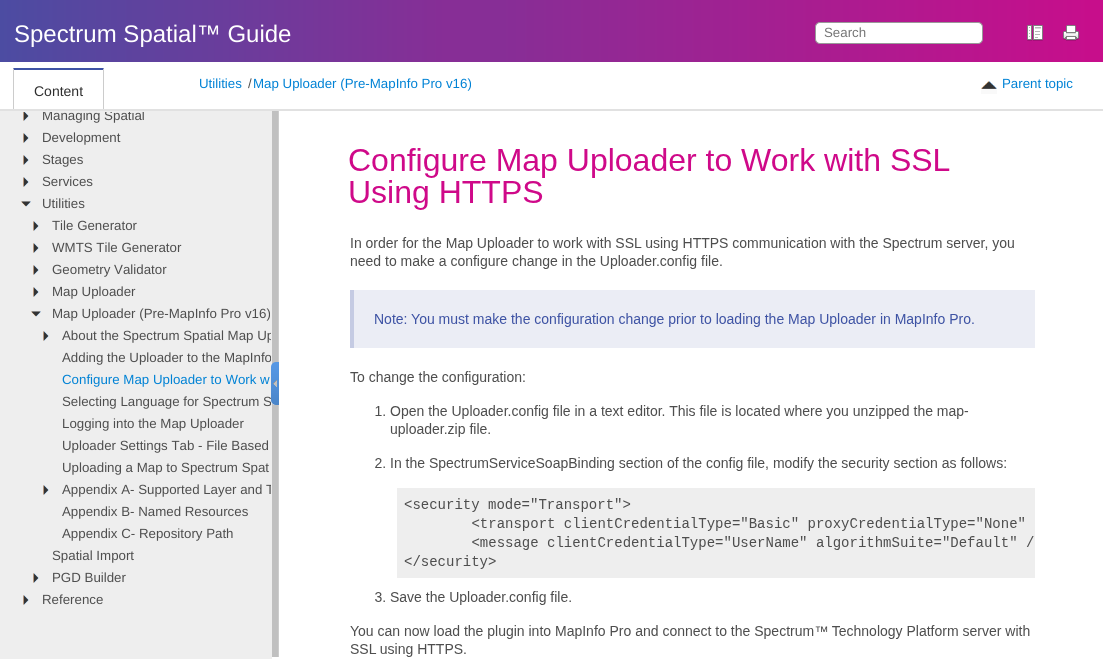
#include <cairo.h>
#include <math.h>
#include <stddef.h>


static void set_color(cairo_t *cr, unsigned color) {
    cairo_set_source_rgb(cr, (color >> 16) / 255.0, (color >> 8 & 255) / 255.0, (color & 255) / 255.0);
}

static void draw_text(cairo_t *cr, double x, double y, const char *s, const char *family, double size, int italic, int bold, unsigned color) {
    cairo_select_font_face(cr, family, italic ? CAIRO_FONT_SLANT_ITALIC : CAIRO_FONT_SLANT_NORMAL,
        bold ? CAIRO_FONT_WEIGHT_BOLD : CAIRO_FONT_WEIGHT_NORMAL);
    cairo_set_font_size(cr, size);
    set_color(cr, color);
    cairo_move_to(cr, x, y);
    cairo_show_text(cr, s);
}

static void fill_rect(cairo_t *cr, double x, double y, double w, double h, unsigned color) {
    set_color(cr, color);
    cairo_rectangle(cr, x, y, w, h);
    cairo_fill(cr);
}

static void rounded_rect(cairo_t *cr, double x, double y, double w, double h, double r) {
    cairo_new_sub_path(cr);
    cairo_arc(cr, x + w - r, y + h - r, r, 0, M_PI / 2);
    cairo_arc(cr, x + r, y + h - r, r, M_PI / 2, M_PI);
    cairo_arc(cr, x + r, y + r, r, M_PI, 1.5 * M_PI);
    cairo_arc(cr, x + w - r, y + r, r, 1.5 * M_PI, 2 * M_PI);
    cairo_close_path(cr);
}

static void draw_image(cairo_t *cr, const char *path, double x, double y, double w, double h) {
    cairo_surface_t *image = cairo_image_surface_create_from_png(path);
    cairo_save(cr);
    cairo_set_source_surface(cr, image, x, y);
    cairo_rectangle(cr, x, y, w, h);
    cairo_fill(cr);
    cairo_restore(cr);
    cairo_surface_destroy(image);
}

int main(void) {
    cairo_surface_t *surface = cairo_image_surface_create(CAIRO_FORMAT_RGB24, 1103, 660);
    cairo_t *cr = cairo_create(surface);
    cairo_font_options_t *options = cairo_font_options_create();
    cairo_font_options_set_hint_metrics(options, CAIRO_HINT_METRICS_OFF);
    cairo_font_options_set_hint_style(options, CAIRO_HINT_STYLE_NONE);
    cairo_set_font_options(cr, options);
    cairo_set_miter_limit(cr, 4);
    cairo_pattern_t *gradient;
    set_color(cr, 0xFFFFFF);
    cairo_paint(cr);
    gradient = cairo_pattern_create_linear(0, 31, 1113, 31);
    cairo_pattern_add_color_stop_rgba(gradient, 0, 0.298, 0.298, 0.635, 1);
    cairo_pattern_add_color_stop_rgba(gradient, 0.4, 0.529, 0.18, 0.588, 1);
    cairo_pattern_add_color_stop_rgba(gradient, 0.45, 0.529, 0.18, 0.588, 1);
    cairo_pattern_add_color_stop_rgba(gradient, 1, 0.788, 0.051, 0.545, 1);
    cairo_set_source(cr, gradient);
    cairo_pattern_destroy(gradient);
    cairo_rectangle(cr, 0, 0, 1103, 62);
    cairo_fill(cr);
    draw_text(cr, 14, 42, "Spectrum Spatial™ Guide", "Liberation Sans", 24, 0, 0, 0xFFFFFF);
    rounded_rect(cr, 815.5, 22.5, 167, 21, 4.5);
    cairo_fill_preserve(cr);
    set_color(cr, 0x999999);
    cairo_set_line_width(cr, 1);
    cairo_stroke(cr);
    draw_text(cr, 824, 37, "Search", "Liberation Sans", 13.3, 0, 0, 0x757575);
    draw_image(cr, "assets/img1.png", 1027, 25, 16, 16);
    draw_image(cr, "assets/img2.png", 1063, 25, 16, 16);
    set_color(cr, 0x3E53A4);
    cairo_new_path(cr);
    cairo_move_to(cr, 13, 68);
    cairo_line_to(cr, 104, 68);
    cairo_line_to(cr, 103, 70);
    cairo_line_to(cr, 14, 70);
    cairo_close_path(cr);
    cairo_fill(cr);
    set_color(cr, 0xCCCCCC);
    cairo_new_path(cr);
    cairo_move_to(cr, 104, 68);
    cairo_line_to(cr, 104, 109);
    cairo_line_to(cr, 103, 109);
    cairo_line_to(cr, 103, 70);
    cairo_close_path(cr);
    cairo_fill(cr);
    cairo_new_path(cr);
    cairo_move_to(cr, 13, 109);
    cairo_line_to(cr, 13, 68);
    cairo_line_to(cr, 14, 70);
    cairo_line_to(cr, 14, 109);
    cairo_close_path(cr);
    cairo_fill(cr);
    draw_text(cr, 34, 96, "Content", "Liberation Sans", 14, 0, 0, 0x2E2E2E);
    draw_text(cr, 199, 88, "Utilities", "Liberation Sans", 13.3, 0, 0, 0x0082D5);
    draw_text(cr, 248, 88, "/", "Liberation Sans", 13.3, 0, 0, 0x4E4E4E);
    draw_text(cr, 253, 88, "Map Uploader (Pre-MapInfo Pro v16)", "Liberation Sans", 13.3, 0, 0, 0x0082D5);
    draw_image(cr, "assets/img3.png", 981, 81, 16, 13);
    draw_text(cr, 1002, 88, "Parent topic", "Liberation Sans", 13.3, 0, 0, 0x0082D5);
    fill_rect(cr, 0, 109, 1103, 2, 0xE1E1E1);
    fill_rect(cr, 0, 111, 272, 548, 0xEEEEEE);
    draw_image(cr, "assets/img4.png", 23, 112, 6, 9);
    cairo_save(cr);
    cairo_rectangle(cr, 1, 112, 270, 546);
    cairo_clip(cr);
    draw_text(cr, 42, 120, "Managing Spatial", "Liberation Sans", 13.3, 0, 0, 0x4E4E4E);
    cairo_restore(cr);
    draw_image(cr, "assets/img5.png", 23, 133, 6, 10);
    draw_text(cr, 42, 142, "Development", "Liberation Sans", 13.3, 0, 0, 0x4E4E4E);
    draw_image(cr, "assets/img5.png", 23, 155, 6, 10);
    draw_text(cr, 42, 164, "Stages", "Liberation Sans", 13.3, 0, 0, 0x4E4E4E);
    draw_image(cr, "assets/img5.png", 23, 177, 6, 10);
    draw_text(cr, 42, 186, "Services", "Liberation Sans", 13.3, 0, 0, 0x4E4E4E);
    draw_image(cr, "assets/img6.png", 21, 201, 10, 6);
    draw_text(cr, 42, 208, "Utilities", "Liberation Sans", 13.3, 0, 0, 0x4E4E4E);
    draw_image(cr, "assets/img5.png", 33, 221, 6, 10);
    draw_text(cr, 52, 230, "Tile Generator", "Liberation Sans", 13.3, 0, 0, 0x4E4E4E);
    draw_image(cr, "assets/img5.png", 33, 243, 6, 10);
    draw_text(cr, 52, 252, "WMTS Tile Generator", "Liberation Sans", 13.3, 0, 0, 0x4E4E4E);
    draw_image(cr, "assets/img5.png", 33, 265, 6, 10);
    draw_text(cr, 52, 274, "Geometry Validator", "Liberation Sans", 13.3, 0, 0, 0x4E4E4E);
    draw_image(cr, "assets/img5.png", 33, 287, 6, 10);
    draw_text(cr, 52, 296, "Map Uploader", "Liberation Sans", 13.3, 0, 0, 0x4E4E4E);
    draw_image(cr, "assets/img6.png", 31, 311, 10, 6);
    draw_text(cr, 52, 318, "Map Uploader (Pre-MapInfo Pro v16)", "Liberation Sans", 13.3, 0, 0, 0x4E4E4E);
    draw_image(cr, "assets/img5.png", 43, 331, 6, 10);
    cairo_save(cr);
    cairo_rectangle(cr, 1, 112, 270, 546);
    cairo_clip(cr);
    draw_text(cr, 62, 340, "About the Spectrum Spatial Map Up", "Liberation Sans", 13.3, 0, 0, 0x4E4E4E);
    draw_text(cr, 62, 362, "Adding the Uploader to the MapInfo", "Liberation Sans", 13.3, 0, 0, 0x4E4E4E);
    cairo_restore(cr);
    draw_text(cr, 62, 384, "Configure Map Uploader to Work w", "Liberation Sans", 13.3, 0, 0, 0x0082D5);
    cairo_save(cr);
    cairo_rectangle(cr, 1, 112, 270, 546);
    cairo_clip(cr);
    draw_text(cr, 62, 406, "Selecting Language for Spectrum S", "Liberation Sans", 13.3, 0, 0, 0x4E4E4E);
    cairo_restore(cr);
    draw_text(cr, 62, 428, "Logging into the Map Uploader", "Liberation Sans", 13.3, 0, 0, 0x4E4E4E);
    draw_text(cr, 62, 450, "Uploader Settings Tab - File Based", "Liberation Sans", 13.3, 0, 0, 0x4E4E4E);
    draw_text(cr, 62, 472, "Uploading a Map to Spectrum Spat", "Liberation Sans", 13.3, 0, 0, 0x4E4E4E);
    draw_image(cr, "assets/img5.png", 43, 485, 6, 10);
    cairo_save(cr);
    cairo_rectangle(cr, 1, 112, 270, 546);
    cairo_clip(cr);
    draw_text(cr, 62, 494, "Appendix A- Supported Layer and T", "Liberation Sans", 13.3, 0, 0, 0x4E4E4E);
    cairo_restore(cr);
    draw_text(cr, 62, 516, "Appendix B- Named Resources", "Liberation Sans", 13.3, 0, 0, 0x4E4E4E);
    draw_text(cr, 62, 538, "Appendix C- Repository Path", "Liberation Sans", 13.3, 0, 0, 0x4E4E4E);
    draw_text(cr, 52, 560, "Spatial Import", "Liberation Sans", 13.3, 0, 0, 0x4E4E4E);
    draw_image(cr, "assets/img5.png", 33, 573, 6, 10);
    draw_text(cr, 52, 582, "PGD Builder", "Liberation Sans", 13.3, 0, 0, 0x4E4E4E);
    draw_image(cr, "assets/img5.png", 23, 595, 6, 10);
    draw_text(cr, 42, 604, "Reference", "Liberation Sans", 13.3, 0, 0, 0x4E4E4E);
    fill_rect(cr, 272, 111, 6, 546, 0xC0C0C0);
    fill_rect(cr, 278, 111, 1, 546, 0xCCCCCC);
    draw_image(cr, "assets/img7.png", 271, 362, 8, 43);
    draw_image(cr, "assets/img8.png", 349, 148, 686, 509);
    cairo_surface_write_to_png(surface, "output.png");
    cairo_font_options_destroy(options);
    cairo_destroy(cr);
    cairo_surface_destroy(surface);
    return 0;
}
